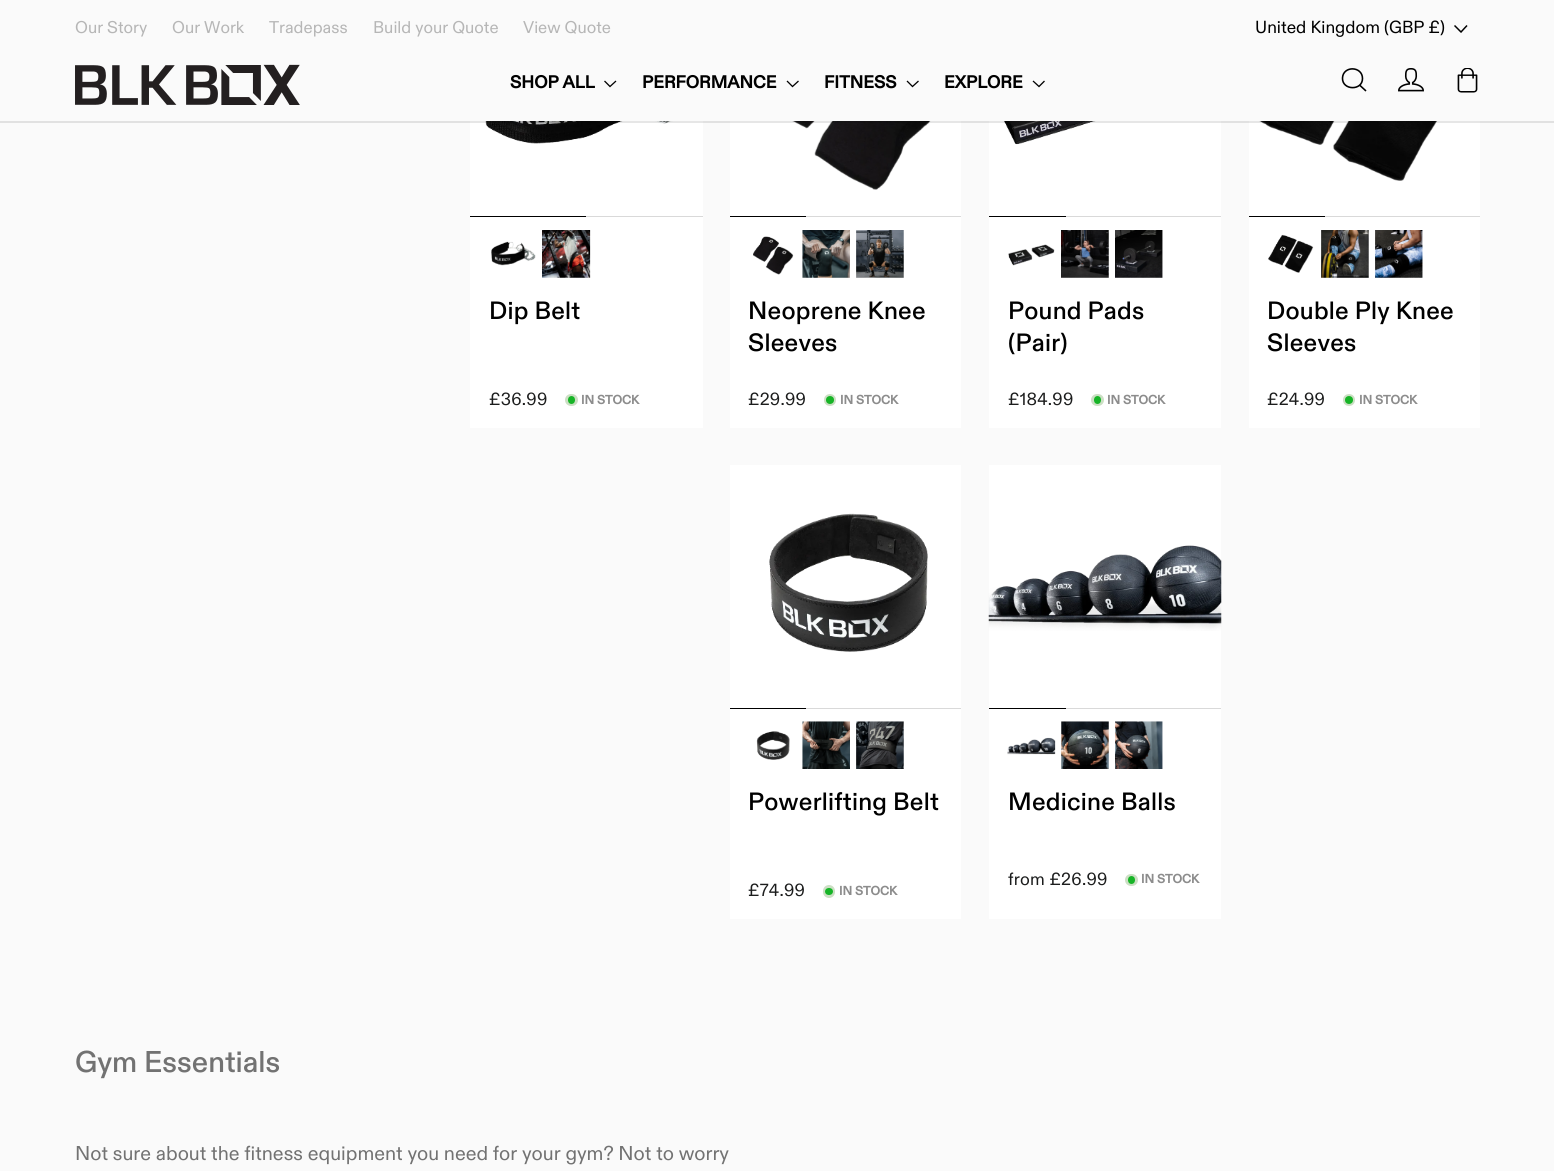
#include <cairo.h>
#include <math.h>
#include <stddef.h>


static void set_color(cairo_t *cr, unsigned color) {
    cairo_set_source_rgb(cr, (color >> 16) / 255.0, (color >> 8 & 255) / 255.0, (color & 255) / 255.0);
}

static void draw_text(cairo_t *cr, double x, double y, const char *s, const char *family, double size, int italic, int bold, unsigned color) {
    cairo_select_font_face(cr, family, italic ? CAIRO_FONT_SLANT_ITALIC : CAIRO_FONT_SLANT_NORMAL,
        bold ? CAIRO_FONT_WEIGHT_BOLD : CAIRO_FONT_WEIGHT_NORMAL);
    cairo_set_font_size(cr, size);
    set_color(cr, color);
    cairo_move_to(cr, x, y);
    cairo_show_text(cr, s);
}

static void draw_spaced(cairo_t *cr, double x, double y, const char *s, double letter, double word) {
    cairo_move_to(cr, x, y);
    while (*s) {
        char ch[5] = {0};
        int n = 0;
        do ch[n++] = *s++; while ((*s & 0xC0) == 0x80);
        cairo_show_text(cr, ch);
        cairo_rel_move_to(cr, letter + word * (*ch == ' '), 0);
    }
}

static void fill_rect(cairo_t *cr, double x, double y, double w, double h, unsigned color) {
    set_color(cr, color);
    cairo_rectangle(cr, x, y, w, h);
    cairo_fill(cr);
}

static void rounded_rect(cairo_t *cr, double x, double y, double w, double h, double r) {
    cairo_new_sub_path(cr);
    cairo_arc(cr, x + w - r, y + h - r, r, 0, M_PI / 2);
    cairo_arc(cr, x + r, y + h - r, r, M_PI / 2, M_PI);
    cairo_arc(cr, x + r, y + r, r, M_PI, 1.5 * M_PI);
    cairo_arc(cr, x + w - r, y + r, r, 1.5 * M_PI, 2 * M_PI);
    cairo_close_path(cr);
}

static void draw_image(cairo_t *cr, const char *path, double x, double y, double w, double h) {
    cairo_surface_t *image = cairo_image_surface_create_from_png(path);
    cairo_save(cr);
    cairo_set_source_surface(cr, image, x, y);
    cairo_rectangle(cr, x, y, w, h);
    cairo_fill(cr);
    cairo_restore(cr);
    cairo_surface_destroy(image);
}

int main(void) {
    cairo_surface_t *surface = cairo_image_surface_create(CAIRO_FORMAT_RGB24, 1554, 1171);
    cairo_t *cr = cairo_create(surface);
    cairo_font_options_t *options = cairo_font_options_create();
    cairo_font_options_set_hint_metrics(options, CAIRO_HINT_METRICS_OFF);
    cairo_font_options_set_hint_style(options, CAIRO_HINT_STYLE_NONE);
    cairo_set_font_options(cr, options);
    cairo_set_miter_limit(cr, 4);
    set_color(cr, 0xFAFAFA);
    cairo_paint(cr);
    draw_text(cr, 75, 33, "Our Story", "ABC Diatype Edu", 17, 0, 0, 0xB6B6B6);
    draw_text(cr, 172, 33, "Our Work", "ABC Diatype Edu", 17, 0, 0, 0xB6B6B6);
    draw_text(cr, 269, 33, "Tradepass", "ABC Diatype Edu", 17, 0, 0, 0xB6B6B6);
    draw_text(cr, 373, 33, "Build your Quote", "ABC Diatype Edu", 17, 0, 0, 0xB6B6B6);
    draw_text(cr, 523, 33, "View Quote", "ABC Diatype Edu", 17, 0, 0, 0xB6B6B6);
    draw_text(cr, 1255, 33, "United Kingdom (GBP £)", "ABC Diatype Edu", 17.5, 0, 0, 0x000000);
    cairo_new_path(cr);
    cairo_move_to(cr, 1454.5, 25.5);
    cairo_line_to(cr, 1461, 32);
    cairo_line_to(cr, 1467, 25.5);
    cairo_set_line_width(cr, 1.5);
    cairo_stroke(cr);
    fill_rect(cr, 470, 121, 233, 307, 0xFFFFFF);
    draw_image(cr, "assets/img4.png", 485, 121, 189, 23);
    fill_rect(cr, 730, 121, 231, 307, 0xFFFFFF);
    draw_image(cr, "assets/img7.png", 792, 121, 139, 69);
    fill_rect(cr, 989, 121, 232, 307, 0xFFFFFF);
    draw_image(cr, "assets/img11.png", 1003, 121, 93, 24);
    fill_rect(cr, 1249, 121, 231, 307, 0xFFFFFF);
    draw_image(cr, "assets/img15.png", 1259, 121, 179, 60);
    cairo_set_source_rgba(cr, 0, 0, 0, 0.1);
    cairo_rectangle(cr, 0, 121, 1554, 2);
    cairo_fill(cr);
    draw_image(cr, "assets/img1.png", 75, 64, 225, 41);
    draw_text(cr, 510, 88, "SHOP ALL", "ABC Diatype Edu", 17.5, 0, 1, 0x000000);
    cairo_new_path(cr);
    cairo_move_to(cr, 604.5, 81);
    cairo_line_to(cr, 610, 86.5);
    cairo_line_to(cr, 616, 81);
    cairo_set_line_width(cr, 1.3);
    cairo_stroke(cr);
    draw_text(cr, 642, 88, "PERFORMANCE", "ABC Diatype Edu", 17.5, 0, 1, 0x000000);
    cairo_new_path(cr);
    cairo_move_to(cr, 787, 81);
    cairo_line_to(cr, 792.5, 86.5);
    cairo_line_to(cr, 798.5, 81);
    cairo_stroke(cr);
    draw_text(cr, 824, 88, "FITNESS", "ABC Diatype Edu", 17.5, 0, 1, 0x000000);
    cairo_new_path(cr);
    cairo_move_to(cr, 907, 81);
    cairo_line_to(cr, 912.5, 86.5);
    cairo_line_to(cr, 918.5, 81);
    cairo_stroke(cr);
    draw_text(cr, 944, 88, "EXPLORE", "ABC Diatype Edu", 17.5, 0, 1, 0x000000);
    cairo_new_path(cr);
    cairo_move_to(cr, 1033, 81);
    cairo_line_to(cr, 1039, 86.5);
    cairo_line_to(cr, 1044.5, 81);
    cairo_stroke(cr);
    cairo_new_path(cr);
    cairo_move_to(cr, 1366, 91);
    cairo_line_to(cr, 1359.5, 85);
    cairo_move_to(cr, 1362.5, 78.5);
    cairo_curve_to(cr, 1362.5, 91, 1342, 90.5, 1342.5, 78);
    cairo_curve_to(cr, 1343, 65.5, 1362.5, 66, 1362.5, 78.5);
    cairo_close_path(cr);
    cairo_set_line_width(cr, 1.6);
    cairo_stroke(cr);
    draw_image(cr, "assets/img2.png", 1398, 68, 26, 24);
    draw_image(cr, "assets/img3.png", 1457, 68, 21, 25);
    fill_rect(cr, 470, 216, 116, 1, 0x000000);
    fill_rect(cr, 586, 216, 117, 1, 0xD9D9D9);
    draw_image(cr, "assets/img5.png", 491, 241, 45, 25);
    draw_image(cr, "assets/img6.png", 542, 230, 49, 48);
    cairo_select_font_face(cr, "ABC Diatype Edu Medium", CAIRO_FONT_SLANT_NORMAL, CAIRO_FONT_WEIGHT_NORMAL);
    cairo_set_font_size(cr, 25);
    set_color(cr, 0x000000);
    draw_spaced(cr, 489, 319, "Dip Belt", 0.25, 0);
    cairo_select_font_face(cr, "ABC Diatype Edu", CAIRO_FONT_SLANT_NORMAL, CAIRO_FONT_WEIGHT_NORMAL);
    cairo_set_font_size(cr, 17.5);
    set_color(cr, 0x1C1D1D);
    draw_spaced(cr, 489, 405, "£36.99", 0.25, 0);
    rounded_rect(cr, 566.5, 395.5, 10, 9, 4.5);
    set_color(cr, 0xCCDFC4);
    cairo_set_line_width(cr, 3);
    cairo_stroke(cr);
    set_color(cr, 0x17B427);
    rounded_rect(cr, 568, 396, 7, 8, 3.5);
    cairo_fill(cr);
    draw_text(cr, 581, 404, "IN STOCK", "ABC Diatype Edu", 12.5, 0, 1, 0x8C8C8C);
    fill_rect(cr, 730, 216, 76, 1, 0x000000);
    fill_rect(cr, 806, 216, 155, 1, 0xD9D9D9);
    draw_image(cr, "assets/img8.png", 753, 236, 41, 39);
    draw_image(cr, "assets/img9.png", 802, 230, 48, 48);
    draw_image(cr, "assets/img10.png", 856, 230, 48, 48);
    cairo_select_font_face(cr, "ABC Diatype Edu Medium", CAIRO_FONT_SLANT_NORMAL, CAIRO_FONT_WEIGHT_NORMAL);
    cairo_set_font_size(cr, 25);
    set_color(cr, 0x000000);
    draw_spaced(cr, 748, 319, "Neoprene Knee", 0.25, 0);
    draw_spaced(cr, 748, 351, "Sleeves", 0.25, 0);
    cairo_select_font_face(cr, "ABC Diatype Edu", CAIRO_FONT_SLANT_NORMAL, CAIRO_FONT_WEIGHT_NORMAL);
    cairo_set_font_size(cr, 17.5);
    set_color(cr, 0x1C1D1D);
    draw_spaced(cr, 748, 405, "£29.99", 0.25, 0);
    cairo_new_path(cr);
    cairo_arc(cr, 830, 400, 4.5, 0, 2 * M_PI);
    set_color(cr, 0xCCDFC4);
    cairo_stroke(cr);
    set_color(cr, 0x17B427);
    cairo_arc(cr, 830, 400, 4, 0, 2 * M_PI);
    cairo_fill(cr);
    draw_text(cr, 840, 404, "IN STOCK", "ABC Diatype Edu", 12.5, 0, 1, 0x8C8C8C);
    fill_rect(cr, 989, 216, 77, 1, 0x000000);
    fill_rect(cr, 1066, 216, 155, 1, 0xD9D9D9);
    draw_image(cr, "assets/img12.png", 1008, 244, 47, 22);
    draw_image(cr, "assets/img13.png", 1061, 230, 48, 48);
    draw_image(cr, "assets/img14.png", 1115, 230, 48, 48);
    cairo_select_font_face(cr, "ABC Diatype Edu Medium", CAIRO_FONT_SLANT_NORMAL, CAIRO_FONT_WEIGHT_NORMAL);
    cairo_set_font_size(cr, 25);
    set_color(cr, 0x000000);
    draw_spaced(cr, 1008, 319, "Pound Pads", 0.25, 0);
    draw_spaced(cr, 1008, 351, "(Pair)", 0.25, 0);
    cairo_select_font_face(cr, "ABC Diatype Edu", CAIRO_FONT_SLANT_NORMAL, CAIRO_FONT_WEIGHT_NORMAL);
    cairo_set_font_size(cr, 17.5);
    set_color(cr, 0x1C1D1D);
    draw_spaced(cr, 1008, 405, "£184.99", 0.25, 0);
    rounded_rect(cr, 1092.5, 395.5, 10, 9, 4.5);
    set_color(cr, 0xCCDFC4);
    cairo_stroke(cr);
    set_color(cr, 0x17B427);
    rounded_rect(cr, 1094, 396, 7, 8, 3.5);
    cairo_fill(cr);
    draw_text(cr, 1107, 404, "IN STOCK", "ABC Diatype Edu", 12.5, 0, 1, 0x8C8C8C);
    fill_rect(cr, 1249, 216, 76, 1, 0x000000);
    fill_rect(cr, 1325, 216, 155, 1, 0xD9D9D9);
    draw_image(cr, "assets/img16.png", 1268, 234, 46, 39);
    draw_image(cr, "assets/img17.png", 1321, 230, 48, 48);
    draw_image(cr, "assets/img18.png", 1375, 230, 48, 48);
    cairo_select_font_face(cr, "ABC Diatype Edu Medium", CAIRO_FONT_SLANT_NORMAL, CAIRO_FONT_WEIGHT_NORMAL);
    cairo_set_font_size(cr, 25);
    set_color(cr, 0x000000);
    draw_spaced(cr, 1267, 319, "Double Ply Knee", 0.25, 0);
    draw_spaced(cr, 1267, 351, "Sleeves", 0.25, 0);
    cairo_select_font_face(cr, "ABC Diatype Edu", CAIRO_FONT_SLANT_NORMAL, CAIRO_FONT_WEIGHT_NORMAL);
    cairo_set_font_size(cr, 17.5);
    set_color(cr, 0x1C1D1D);
    draw_spaced(cr, 1267, 405, "£24.99", 0.25, 0);
    cairo_new_path(cr);
    cairo_arc(cr, 1349, 400, 4.5, 0, 2 * M_PI);
    set_color(cr, 0xCCDFC4);
    cairo_stroke(cr);
    set_color(cr, 0x17B427);
    cairo_arc(cr, 1349, 400, 4, 0, 2 * M_PI);
    cairo_fill(cr);
    draw_text(cr, 1359, 404, "IN STOCK", "ABC Diatype Edu", 12.5, 0, 1, 0x8C8C8C);
    fill_rect(cr, 730, 465, 231, 454, 0xFFFFFF);
    draw_image(cr, "assets/img19.png", 769, 513, 159, 139);
    fill_rect(cr, 730, 708, 76, 1, 0x000000);
    fill_rect(cr, 806, 708, 155, 1, 0xD9D9D9);
    draw_image(cr, "assets/img20.png", 756, 731, 34, 29);
    draw_image(cr, "assets/img21.png", 802, 721, 48, 48);
    draw_image(cr, "assets/img22.png", 856, 721, 48, 48);
    cairo_select_font_face(cr, "ABC Diatype Edu Medium", CAIRO_FONT_SLANT_NORMAL, CAIRO_FONT_WEIGHT_NORMAL);
    cairo_set_font_size(cr, 25);
    set_color(cr, 0x000000);
    draw_spaced(cr, 748, 810, "Powerlifting Belt", 0.25, 0);
    cairo_select_font_face(cr, "ABC Diatype Edu", CAIRO_FONT_SLANT_NORMAL, CAIRO_FONT_WEIGHT_NORMAL);
    cairo_set_font_size(cr, 17.5);
    set_color(cr, 0x1C1D1D);
    draw_spaced(cr, 748, 896, "£74.99", 0.25, 0);
    rounded_rect(cr, 824.5, 886.5, 9, 10, 4.5);
    set_color(cr, 0xCCDFC4);
    cairo_stroke(cr);
    set_color(cr, 0x17B427);
    rounded_rect(cr, 825, 888, 8, 7, 3.5);
    cairo_fill(cr);
    draw_text(cr, 839, 895, "IN STOCK", "ABC Diatype Edu", 12.5, 0, 1, 0x8C8C8C);
    fill_rect(cr, 989, 465, 232, 454, 0xFFFFFF);
    draw_image(cr, "assets/img23.png", 988, 545, 234, 86);
    fill_rect(cr, 989, 708, 77, 1, 0x000000);
    fill_rect(cr, 1066, 708, 155, 1, 0xD9D9D9);
    draw_image(cr, "assets/img24.png", 1007, 737, 49, 18);
    draw_image(cr, "assets/img25.png", 1061, 721, 48, 48);
    draw_image(cr, "assets/img26.png", 1115, 721, 48, 48);
    cairo_select_font_face(cr, "ABC Diatype Edu Medium", CAIRO_FONT_SLANT_NORMAL, CAIRO_FONT_WEIGHT_NORMAL);
    cairo_set_font_size(cr, 25);
    set_color(cr, 0x000000);
    draw_spaced(cr, 1008, 810, "Medicine Balls", 0.25, 0);
    cairo_select_font_face(cr, "ABC Diatype Edu", CAIRO_FONT_SLANT_NORMAL, CAIRO_FONT_WEIGHT_NORMAL);
    cairo_set_font_size(cr, 17.5);
    set_color(cr, 0x1C1D1D);
    draw_spaced(cr, 1008, 885, "from £26.99", 0.25, 0);
    rounded_rect(cr, 1126.5, 875.5, 10, 9, 4.5);
    set_color(cr, 0xCCDFC4);
    cairo_stroke(cr);
    set_color(cr, 0x17B427);
    rounded_rect(cr, 1128, 876, 7, 8, 3.5);
    cairo_fill(cr);
    draw_text(cr, 1141, 883, "IN STOCK", "ABC Diatype Edu", 12.5, 0, 1, 0x8C8C8C);
    draw_text(cr, 75, 1072, "Gym Essentials", "ABC Diatype Edu Medium", 30, 0, 0, 0x727272);
    draw_text(cr, 75, 1160, "Not sure about the fitness equipment you need for your gym? Not to worry", "ABC Diatype Edu", 20, 0, 0, 0x727272);
    cairo_surface_write_to_png(surface, "output.png");
    cairo_font_options_destroy(options);
    cairo_destroy(cr);
    cairo_surface_destroy(surface);
    return 0;
}
